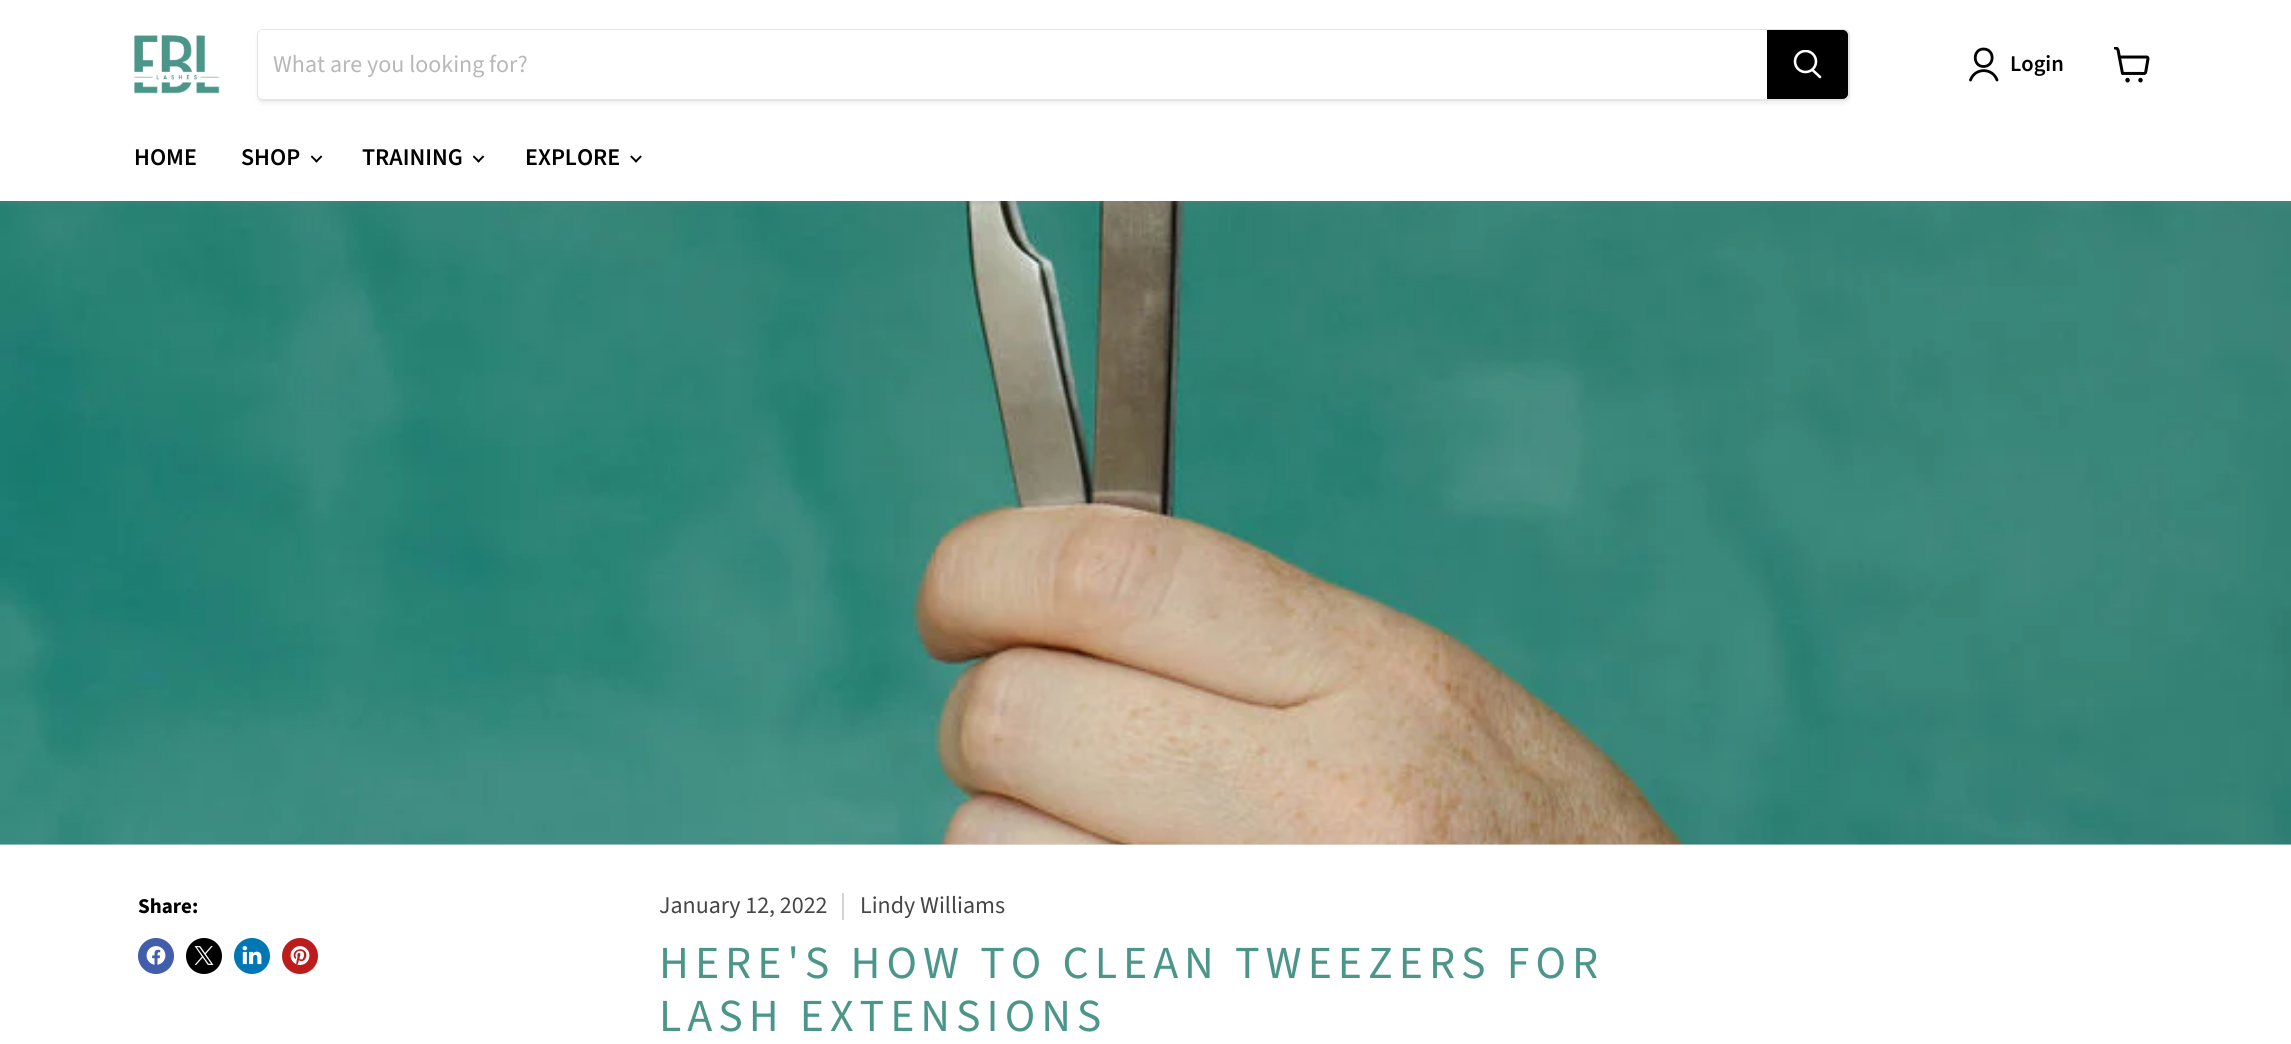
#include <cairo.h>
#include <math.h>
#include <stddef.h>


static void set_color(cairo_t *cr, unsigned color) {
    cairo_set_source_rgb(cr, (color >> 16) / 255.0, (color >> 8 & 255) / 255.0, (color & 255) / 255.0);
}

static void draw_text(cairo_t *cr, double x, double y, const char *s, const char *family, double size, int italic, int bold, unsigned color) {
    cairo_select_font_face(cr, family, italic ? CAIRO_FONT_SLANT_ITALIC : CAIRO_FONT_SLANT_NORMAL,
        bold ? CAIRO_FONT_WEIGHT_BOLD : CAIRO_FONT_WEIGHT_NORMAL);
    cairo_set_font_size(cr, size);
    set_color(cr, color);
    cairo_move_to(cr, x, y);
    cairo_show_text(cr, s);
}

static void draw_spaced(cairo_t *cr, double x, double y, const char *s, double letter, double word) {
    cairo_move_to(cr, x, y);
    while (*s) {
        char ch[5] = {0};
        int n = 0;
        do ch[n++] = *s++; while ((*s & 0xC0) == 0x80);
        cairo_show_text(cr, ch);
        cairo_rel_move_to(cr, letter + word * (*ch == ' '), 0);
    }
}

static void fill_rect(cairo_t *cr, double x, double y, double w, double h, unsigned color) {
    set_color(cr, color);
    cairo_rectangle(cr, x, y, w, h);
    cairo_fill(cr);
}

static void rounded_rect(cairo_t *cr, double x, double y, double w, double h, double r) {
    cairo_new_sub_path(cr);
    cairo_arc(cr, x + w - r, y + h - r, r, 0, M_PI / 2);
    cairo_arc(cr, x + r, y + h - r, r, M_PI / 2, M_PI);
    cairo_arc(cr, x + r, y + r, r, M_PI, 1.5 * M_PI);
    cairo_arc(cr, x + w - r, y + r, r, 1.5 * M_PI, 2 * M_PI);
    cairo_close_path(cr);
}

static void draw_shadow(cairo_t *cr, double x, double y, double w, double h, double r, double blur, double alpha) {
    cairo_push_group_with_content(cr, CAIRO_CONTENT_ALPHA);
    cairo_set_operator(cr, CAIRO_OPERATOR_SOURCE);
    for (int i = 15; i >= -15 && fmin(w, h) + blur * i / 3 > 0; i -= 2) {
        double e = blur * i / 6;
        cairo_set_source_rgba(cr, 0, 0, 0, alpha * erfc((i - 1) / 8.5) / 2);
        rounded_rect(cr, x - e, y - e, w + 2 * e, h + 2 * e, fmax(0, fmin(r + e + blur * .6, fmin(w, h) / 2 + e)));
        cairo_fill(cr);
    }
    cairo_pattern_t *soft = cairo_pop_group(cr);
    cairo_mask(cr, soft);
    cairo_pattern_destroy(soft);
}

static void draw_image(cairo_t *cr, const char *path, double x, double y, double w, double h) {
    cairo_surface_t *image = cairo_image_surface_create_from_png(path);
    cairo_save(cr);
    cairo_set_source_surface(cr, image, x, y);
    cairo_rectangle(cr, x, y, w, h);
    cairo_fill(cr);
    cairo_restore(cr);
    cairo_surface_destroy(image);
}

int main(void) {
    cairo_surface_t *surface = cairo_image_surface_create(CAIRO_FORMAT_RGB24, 2291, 1044);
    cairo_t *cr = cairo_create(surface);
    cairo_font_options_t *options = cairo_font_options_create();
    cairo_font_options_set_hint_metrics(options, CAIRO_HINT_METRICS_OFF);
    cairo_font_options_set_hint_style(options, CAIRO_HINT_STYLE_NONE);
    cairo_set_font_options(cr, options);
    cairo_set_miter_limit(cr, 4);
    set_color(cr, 0xFFFFFF);
    cairo_paint(cr);
    fill_rect(cr, 0, 844, 2291, 1, 0xEBEBEB);
    draw_image(cr, "assets/img5.png", 0, 201, 2291, 644);
    set_color(cr, 0x808080);
    draw_shadow(cr, 0, 2, 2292, 201, 0, 3, 0.25);
    fill_rect(cr, 0, 0, 2291, 201, 0xFFFFFF);
    draw_image(cr, "assets/img1.png", 134, 35, 86, 59);
    cairo_save(cr);
    cairo_set_fill_rule(cr, CAIRO_FILL_RULE_EVEN_ODD);
    cairo_new_path(cr);
    cairo_move_to(cr, 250, 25);
    cairo_line_to(cr, 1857, 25);
    cairo_line_to(cr, 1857, 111);
    cairo_line_to(cr, 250, 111);
    cairo_close_path(cr);
    cairo_move_to(cr, 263, 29);
    cairo_line_to(cr, 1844, 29);
    cairo_curve_to(cr, 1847.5, 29, 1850, 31.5, 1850, 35);
    cairo_line_to(cr, 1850, 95);
    cairo_curve_to(cr, 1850, 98.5, 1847.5, 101, 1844, 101);
    cairo_line_to(cr, 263, 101);
    cairo_curve_to(cr, 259.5, 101, 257, 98.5, 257, 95);
    cairo_line_to(cr, 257, 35);
    cairo_curve_to(cr, 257, 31.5, 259.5, 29, 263, 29);
    cairo_close_path(cr);
    cairo_clip(cr);
    set_color(cr, 0x808080);
    draw_shadow(cr, 257, 32, 1593, 72, 6, 2, 0.11);
    cairo_restore(cr);
    rounded_rect(cr, 258, 30, 1591, 70, 5);
    cairo_set_source_rgba(cr, 0.502, 0.502, 0.502, 0.2);
    cairo_stroke(cr);
    set_color(cr, 0xFFFFFF);
    cairo_new_path(cr);
    cairo_move_to(cr, 263, 30);
    cairo_line_to(cr, 1767, 30);
    cairo_line_to(cr, 1767, 99);
    cairo_line_to(cr, 263, 99);
    cairo_curve_to(cr, 260, 99, 258, 97, 258, 94);
    cairo_line_to(cr, 258, 35);
    cairo_curve_to(cr, 258, 32, 260, 30, 263, 30);
    cairo_close_path(cr);
    cairo_fill(cr);
    draw_text(cr, 273, 72, "What are you looking for?", "Source Sans Pro", 24, 0, 0, 0xB8B8B8);
    set_color(cr, 0x000000);
    cairo_new_path(cr);
    cairo_move_to(cr, 1768, 31);
    cairo_line_to(cr, 1843, 31);
    cairo_curve_to(cr, 1845, 31, 1847, 33, 1847, 35);
    cairo_line_to(cr, 1847, 94);
    cairo_curve_to(cr, 1847, 96, 1845, 98, 1843, 98);
    cairo_line_to(cr, 1768, 98);
    cairo_close_path(cr);
    cairo_fill_preserve(cr);
    cairo_stroke(cr);
    cairo_new_path(cr);
    cairo_move_to(cr, 1820, 77);
    cairo_line_to(cr, 1812.5, 70);
    set_color(cr, 0xFFFFFF);
    cairo_set_line_width(cr, 2.6);
    cairo_set_line_cap(cr, CAIRO_LINE_CAP_ROUND);
    cairo_stroke(cr);
    cairo_save(cr);
    cairo_rectangle(cr, 1793, 50, 30, 31);
    cairo_clip(cr);
    cairo_arc(cr, 1805.5, 61.5, 10.5, 0, 2 * M_PI);
    cairo_set_line_cap(cr, CAIRO_LINE_CAP_BUTT);
    cairo_stroke(cr);
    cairo_restore(cr);
    cairo_new_path(cr);
    cairo_move_to(cr, 1983.5, 66.5);
    cairo_curve_to(cr, 1995, 66.5, 1995, 49, 1983.5, 49);
    cairo_curve_to(cr, 1972.5, 49, 1972.5, 66.5, 1983.5, 66.5);
    cairo_close_path(cr);
    cairo_move_to(cr, 1997, 80);
    cairo_curve_to(cr, 1992.5, 67.5, 1975, 67.5, 1970.5, 80);
    set_color(cr, 0x000000);
    cairo_set_line_width(cr, 2.8);
    cairo_set_line_join(cr, CAIRO_LINE_JOIN_ROUND);
    cairo_stroke(cr);
    draw_text(cr, 2010, 71, "Login", "Source Sans Pro SemiBold", 22.5, 0, 0, 0x000000);
    draw_image(cr, "assets/img2.png", 2114, 47, 36, 36);
    draw_text(cr, 134, 165, "HOME", "Source Sans Pro SemiBold", 24, 0, 0, 0x000000);
    draw_text(cr, 241, 165, "SHOP", "Source Sans Pro SemiBold", 24, 0, 0, 0x000000);
    draw_image(cr, "assets/img3.png", 311, 155, 12, 8);
    draw_text(cr, 362, 165, "TRAINING", "Source Sans Pro SemiBold", 24, 0, 0, 0x000000);
    draw_image(cr, "assets/img3.png", 473, 155, 12, 8);
    draw_text(cr, 525, 165, "EXPLORE", "Source Sans Pro SemiBold", 24, 0, 0, 0x000000);
    draw_image(cr, "assets/img4.png", 630, 155, 12, 8);
    draw_text(cr, 138, 913, "Share:", "Source Sans Pro", 21, 0, 1, 0x000000);
    set_color(cr, 0x425DAB);
    cairo_new_path(cr);
    cairo_arc(cr, 156, 956, 18, 0, 2 * M_PI);
    cairo_fill(cr);
    draw_image(cr, "assets/img6.png", 146, 946, 20, 19);
    set_color(cr, 0x000000);
    cairo_arc(cr, 204, 956, 18, 0, 2 * M_PI);
    cairo_fill(cr);
    draw_image(cr, "assets/img7.png", 194, 946, 20, 19);
    set_color(cr, 0x0077B5);
    cairo_arc(cr, 252, 956, 18, 0, 2 * M_PI);
    cairo_fill(cr);
    draw_image(cr, "assets/img8.png", 242, 946, 20, 19);
    set_color(cr, 0xBD1C1C);
    cairo_arc(cr, 300, 956, 18, 0, 2 * M_PI);
    cairo_fill(cr);
    draw_image(cr, "assets/img9.png", 290, 946, 20, 19);
    draw_text(cr, 659, 913, "January 12, 2022", "Source Sans Pro", 24, 0, 0, 0x464646);
    fill_rect(cr, 842, 893, 2, 27, 0xD3D3D3);
    draw_text(cr, 860, 913, "Lindy Williams", "Source Sans Pro", 24, 0, 0, 0x464646);
    cairo_set_font_size(cr, 45.9);
    set_color(cr, 0x4B9689);
    draw_spaced(cr, 659, 978, "HERE'S HOW TO CLEAN TWEEZERS FOR", 6, 0);
    draw_spaced(cr, 659, 1031, "LASH EXTENSIONS", 6, 0);
    cairo_surface_write_to_png(surface, "output.png");
    cairo_font_options_destroy(options);
    cairo_destroy(cr);
    cairo_surface_destroy(surface);
    return 0;
}
